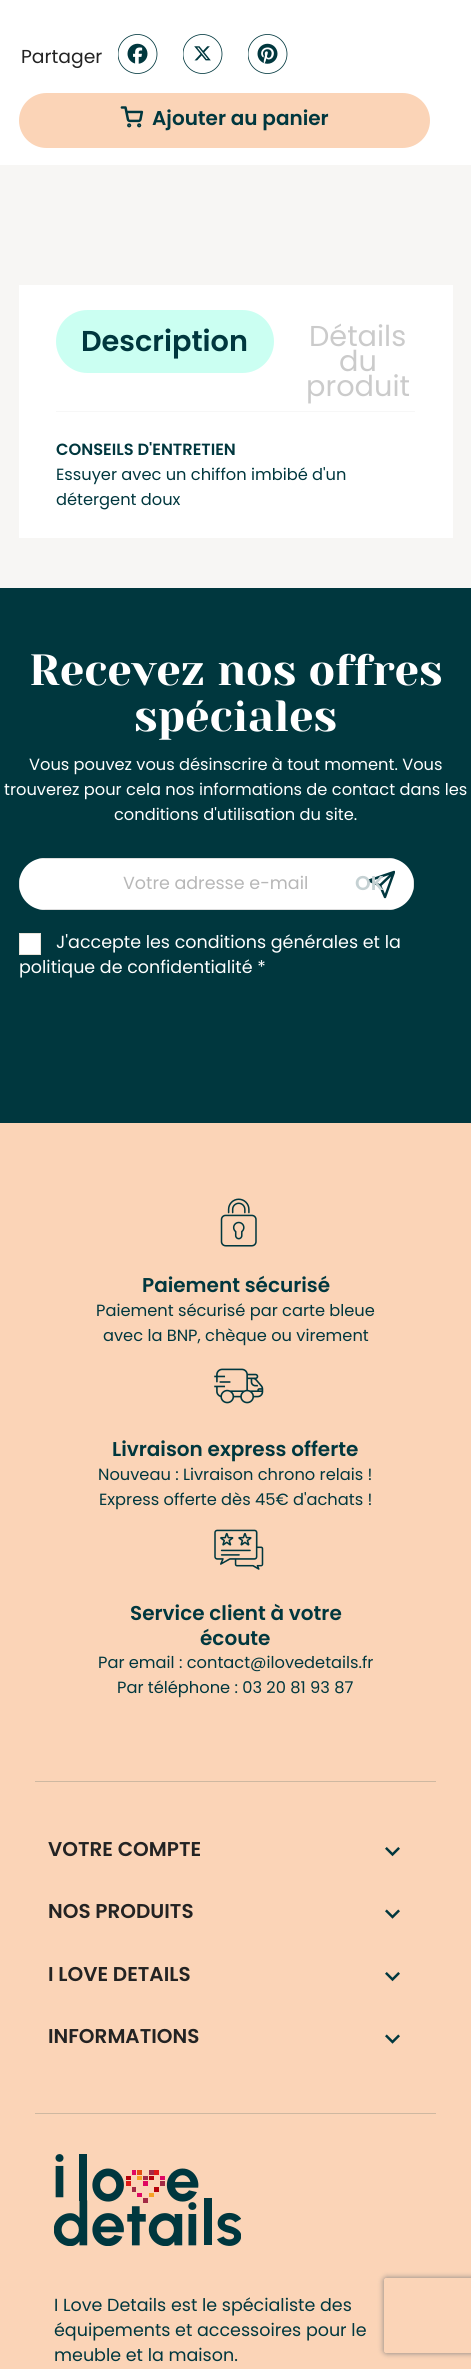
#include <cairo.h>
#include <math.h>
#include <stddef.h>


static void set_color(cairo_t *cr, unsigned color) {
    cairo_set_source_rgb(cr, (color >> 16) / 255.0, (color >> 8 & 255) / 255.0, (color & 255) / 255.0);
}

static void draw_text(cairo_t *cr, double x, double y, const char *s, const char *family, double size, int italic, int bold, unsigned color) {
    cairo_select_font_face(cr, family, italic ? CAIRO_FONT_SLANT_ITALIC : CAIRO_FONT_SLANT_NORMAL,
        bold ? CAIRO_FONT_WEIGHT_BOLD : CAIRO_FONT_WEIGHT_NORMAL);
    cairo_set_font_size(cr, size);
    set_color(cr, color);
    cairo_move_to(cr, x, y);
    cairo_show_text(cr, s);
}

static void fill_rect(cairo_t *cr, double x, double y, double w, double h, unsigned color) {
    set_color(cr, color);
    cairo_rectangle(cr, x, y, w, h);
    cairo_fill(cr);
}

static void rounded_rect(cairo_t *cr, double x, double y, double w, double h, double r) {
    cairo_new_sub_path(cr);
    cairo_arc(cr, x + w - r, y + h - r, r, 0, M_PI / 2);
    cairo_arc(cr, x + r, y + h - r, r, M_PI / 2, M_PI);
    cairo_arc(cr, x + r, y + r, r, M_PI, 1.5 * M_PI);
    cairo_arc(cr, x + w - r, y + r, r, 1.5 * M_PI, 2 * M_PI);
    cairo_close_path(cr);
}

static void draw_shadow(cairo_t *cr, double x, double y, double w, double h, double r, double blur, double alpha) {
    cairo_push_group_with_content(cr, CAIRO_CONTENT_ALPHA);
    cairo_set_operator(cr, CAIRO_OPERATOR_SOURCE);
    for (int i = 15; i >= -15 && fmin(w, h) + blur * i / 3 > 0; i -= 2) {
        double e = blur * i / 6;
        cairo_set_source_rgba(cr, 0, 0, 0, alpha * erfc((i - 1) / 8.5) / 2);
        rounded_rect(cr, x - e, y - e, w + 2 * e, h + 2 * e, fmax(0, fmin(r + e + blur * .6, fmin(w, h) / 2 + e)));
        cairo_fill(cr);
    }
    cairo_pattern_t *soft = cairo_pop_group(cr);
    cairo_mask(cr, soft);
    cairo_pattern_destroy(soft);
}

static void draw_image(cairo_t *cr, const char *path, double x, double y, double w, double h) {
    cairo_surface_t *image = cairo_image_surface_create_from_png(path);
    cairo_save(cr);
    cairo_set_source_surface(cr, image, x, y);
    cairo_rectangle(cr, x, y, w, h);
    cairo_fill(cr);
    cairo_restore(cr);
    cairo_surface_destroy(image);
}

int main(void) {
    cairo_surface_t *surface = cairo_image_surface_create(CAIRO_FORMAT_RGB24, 471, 2369);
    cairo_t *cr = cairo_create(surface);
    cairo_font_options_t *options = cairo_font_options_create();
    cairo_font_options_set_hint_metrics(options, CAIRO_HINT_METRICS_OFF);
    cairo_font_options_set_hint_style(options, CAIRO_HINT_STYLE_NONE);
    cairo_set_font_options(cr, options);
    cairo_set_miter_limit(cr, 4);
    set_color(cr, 0xF7F6F4);
    cairo_paint(cr);
    fill_rect(cr, 0, 0, 471, 165, 0xFFFFFF);
    draw_text(cr, 21, 63, "Partager", "Poppins", 18.75, 0, 0, 0x232323);
    draw_image(cr, "assets/img1.png", 118, 34, 40, 40);
    draw_image(cr, "assets/img2.png", 183, 34, 40, 40);
    draw_image(cr, "assets/img3.png", 248, 34, 40, 40);
    set_color(cr, 0xFBD4B7);
    rounded_rect(cr, 19, 93, 411, 55, 27.5);
    cairo_fill(cr);
    draw_image(cr, "assets/img4.png", 120, 106, 24, 22);
    draw_text(cr, 152, 125, "Ajouter au panier", "Poppins SemiBold", 20, 0, 0, 0x00373E);
    fill_rect(cr, 19, 285, 434, 253, 0xFFFFFF);
    fill_rect(cr, 56, 411, 359, 1, 0xF7F7F7);
    set_color(cr, 0xCBFFF2);
    rounded_rect(cr, 56, 310, 218, 63, 31.5);
    cairo_fill(cr);
    draw_text(cr, 81, 351, "Description", "Poppins SemiBold", 28.75, 0, 0, 0x00373E);
    draw_text(cr, 309, 346, "Détails", "Poppins", 28.75, 0, 0, 0xCBCBCB);
    draw_text(cr, 339, 371, "du", "Poppins", 28.75, 0, 0, 0xCBCBCB);
    draw_text(cr, 306, 396, "produit", "Poppins", 28.75, 0, 0, 0xCBCBCB);
    draw_text(cr, 56, 455, "CONSEILS D'ENTRETIEN", "Poppins SemiBold", 16.25, 0, 0, 0x00373E);
    draw_text(cr, 56, 480, "Essuyer avec un chiffon imbibé d'un", "Poppins", 16.25, 0, 0, 0x00373E);
    draw_text(cr, 56, 505, "détergent doux", "Poppins", 16.25, 0, 0, 0x00373E);
    fill_rect(cr, 0, 588, 471, 535, 0x00373E);
    draw_text(cr, 29, 685, "Recevez nos offres", "Yeseva One", 43.75, 0, 0, 0xFFFFFF);
    draw_text(cr, 134, 731, "spéciales", "Yeseva One", 43.75, 0, 0, 0xFFFFFF);
    draw_text(cr, 29, 770, "Vous pouvez vous désinscrire à tout moment. Vous", "Poppins", 16.25, 0, 0, 0xFFFFFF);
    draw_text(cr, 4, 795, "trouverez pour cela nos informations de contact dans les", "Poppins", 16.25, 0, 0, 0xFFFFFF);
    draw_text(cr, 114, 820, "conditions d'utilisation du site.", "Poppins", 16.25, 0, 0, 0xFFFFFF);
    rounded_rect(cr, 19, 858, 395, 52, 26);
    cairo_fill(cr);
    set_color(cr, 0xDDDDDD);
    cairo_set_fill_rule(cr, CAIRO_FILL_RULE_EVEN_ODD);
    cairo_new_path(cr);
    cairo_move_to(cr, 45, 910);
    cairo_line_to(cr, 388, 910);
    cairo_line_to(cr, 395, 909);
    cairo_line_to(cr, 38, 909);
    cairo_close_path(cr);
    cairo_move_to(cr, 20, 891);
    cairo_curve_to(cr, 19, 887, 19, 881, 20, 877);
    cairo_close_path(cr);
    cairo_move_to(cr, 45, 858);
    cairo_line_to(cr, 38, 859);
    cairo_line_to(cr, 395, 859);
    cairo_line_to(cr, 388, 858);
    cairo_close_path(cr);
    cairo_move_to(cr, 413, 877);
    cairo_line_to(cr, 413, 891);
    cairo_curve_to(cr, 414, 887, 414, 881, 413, 877);
    cairo_close_path(cr);
    cairo_fill(cr);
    draw_text(cr, 123, 889, "Votre adresse e-mail", "Poppins", 17.5, 0, 0, 0xB7B7B7);
    cairo_save(cr);
    cairo_set_fill_rule(cr, CAIRO_FILL_RULE_WINDING);
    cairo_rectangle(cr, 368, 870, 27, 29);
    cairo_clip(cr);
    cairo_new_path(cr);
    cairo_move_to(cr, 394, 872);
    cairo_line_to(cr, 380, 885.5);
    cairo_move_to(cr, 394, 872);
    cairo_line_to(cr, 385, 897);
    cairo_line_to(cr, 380, 885.5);
    cairo_move_to(cr, 394, 872);
    cairo_line_to(cr, 369, 880.5);
    cairo_line_to(cr, 380, 885.5);
    set_color(cr, 0x00373E);
    cairo_set_line_width(cr, 2.5);
    cairo_set_line_cap(cr, CAIRO_LINE_CAP_ROUND);
    cairo_set_line_join(cr, CAIRO_LINE_JOIN_ROUND);
    cairo_stroke(cr);
    cairo_restore(cr);
    draw_text(cr, 355, 890, "OK", "Poppins SemiBold", 20, 0, 0, 0xC5D1D3);
    set_color(cr, 0xFFFFFF);
    cairo_rectangle(cr, 19.5, 933.5, 21, 21);
    cairo_fill_preserve(cr);
    set_color(cr, 0xE8E3D9);
    cairo_set_line_width(cr, 1);
    cairo_stroke(cr);
    draw_text(cr, 56, 948, "J'accepte les conditions générales et la", "Poppins", 17.5, 0, 0, 0xFFFFFF);
    draw_text(cr, 19, 973, "politique de confidentialité *", "Poppins", 17.5, 0, 0, 0xFFFFFF);
    fill_rect(cr, 0, 1123, 471, 1246, 0xFBD4B7);
    fill_rect(cr, 35, 1781, 401, 1, 0xCEB8A1);
    draw_image(cr, "assets/img5.png", 220, 1198, 37, 49);
    draw_text(cr, 142, 1292, "Paiement sécurisé", "Poppins SemiBold", 20, 0, 0, 0x00373E);
    draw_text(cr, 96, 1316, "Paiement sécurisé par carte bleue", "Poppins", 16.25, 0, 0, 0x00373E);
    draw_text(cr, 103, 1341, "avec la BNP, chèque ou virement", "Poppins", 16.25, 0, 0, 0x00373E);
    draw_image(cr, "assets/img6.png", 214, 1368, 50, 36);
    draw_text(cr, 112, 1456, "Livraison express offerte", "Poppins SemiBold", 20, 0, 0, 0x00373E);
    draw_text(cr, 98, 1480, "Nouveau : Livraison chrono relais !", "Poppins", 16.25, 0, 0, 0x00373E);
    draw_text(cr, 99, 1505, "Express offerte dès 45€ d'achats !", "Poppins", 16.25, 0, 0, 0x00373E);
    draw_image(cr, "assets/img7.png", 214, 1529, 50, 41);
    draw_text(cr, 130, 1620, "Service client à votre", "Poppins SemiBold", 20, 0, 0, 0x00373E);
    draw_text(cr, 200, 1645, "écoute", "Poppins SemiBold", 20, 0, 0, 0x00373E);
    draw_text(cr, 98, 1668, "Par email : contact@ilovedetails.fr", "Poppins", 16.25, 0, 0, 0x00373E);
    draw_text(cr, 117, 1693, "Par téléphone : 03 20 81 93 87", "Poppins", 16.25, 0, 0, 0x00373E);
    draw_text(cr, 48, 1856, "VOTRE COMPTE", "Poppins SemiBold", 20, 0, 0, 0x232323);
    draw_image(cr, "assets/img8.png", 385, 1847, 15, 10);
    draw_text(cr, 48, 1918, "NOS PRODUITS", "Poppins SemiBold", 20, 0, 0, 0x232323);
    draw_image(cr, "assets/img9.png", 385, 1909, 15, 10);
    draw_text(cr, 48, 1981, "I LOVE DETAILS", "Poppins SemiBold", 20, 0, 0, 0x232323);
    draw_image(cr, "assets/img8.png", 385, 1972, 15, 10);
    draw_text(cr, 48, 2043, "INFORMATIONS", "Poppins SemiBold", 20, 0, 0, 0x232323);
    draw_image(cr, "assets/img9.png", 385, 2034, 15, 10);
    fill_rect(cr, 35, 2113, 401, 1, 0xCEB8A1);
    draw_image(cr, "assets/img10.png", 54, 2154, 187, 92);
    draw_text(cr, 54, 2311, "I Love Details est le spécialiste des", "Poppins", 17.5, 0, 0, 0x00373E);
    draw_text(cr, 54, 2336, "équipements et accessoires pour le", "Poppins", 17.5, 0, 0, 0x00373E);
    draw_text(cr, 54, 2361, "meuble et la maison.", "Poppins", 17.5, 0, 0, 0x00373E);
    cairo_save(cr);
    cairo_new_path(cr);
    cairo_move_to(cr, 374, 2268);
    cairo_line_to(cr, 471, 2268);
    cairo_line_to(cr, 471, 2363);
    cairo_line_to(cr, 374, 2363);
    cairo_close_path(cr);
    cairo_move_to(cr, 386.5, 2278);
    cairo_line_to(cr, 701.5, 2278);
    cairo_curve_to(cr, 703, 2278, 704, 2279, 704, 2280.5);
    cairo_line_to(cr, 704, 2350.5);
    cairo_curve_to(cr, 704, 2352, 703, 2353, 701.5, 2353);
    cairo_line_to(cr, 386.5, 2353);
    cairo_curve_to(cr, 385, 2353, 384, 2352, 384, 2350.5);
    cairo_line_to(cr, 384, 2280.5);
    cairo_curve_to(cr, 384, 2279, 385, 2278, 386.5, 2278);
    cairo_close_path(cr);
    cairo_clip(cr);
    set_color(cr, 0x808080);
    draw_shadow(cr, 384, 2278, 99, 75, 2.5, 3, 1);
    cairo_restore(cr);
    cairo_surface_write_to_png(surface, "output.png");
    cairo_font_options_destroy(options);
    cairo_destroy(cr);
    cairo_surface_destroy(surface);
    return 0;
}
